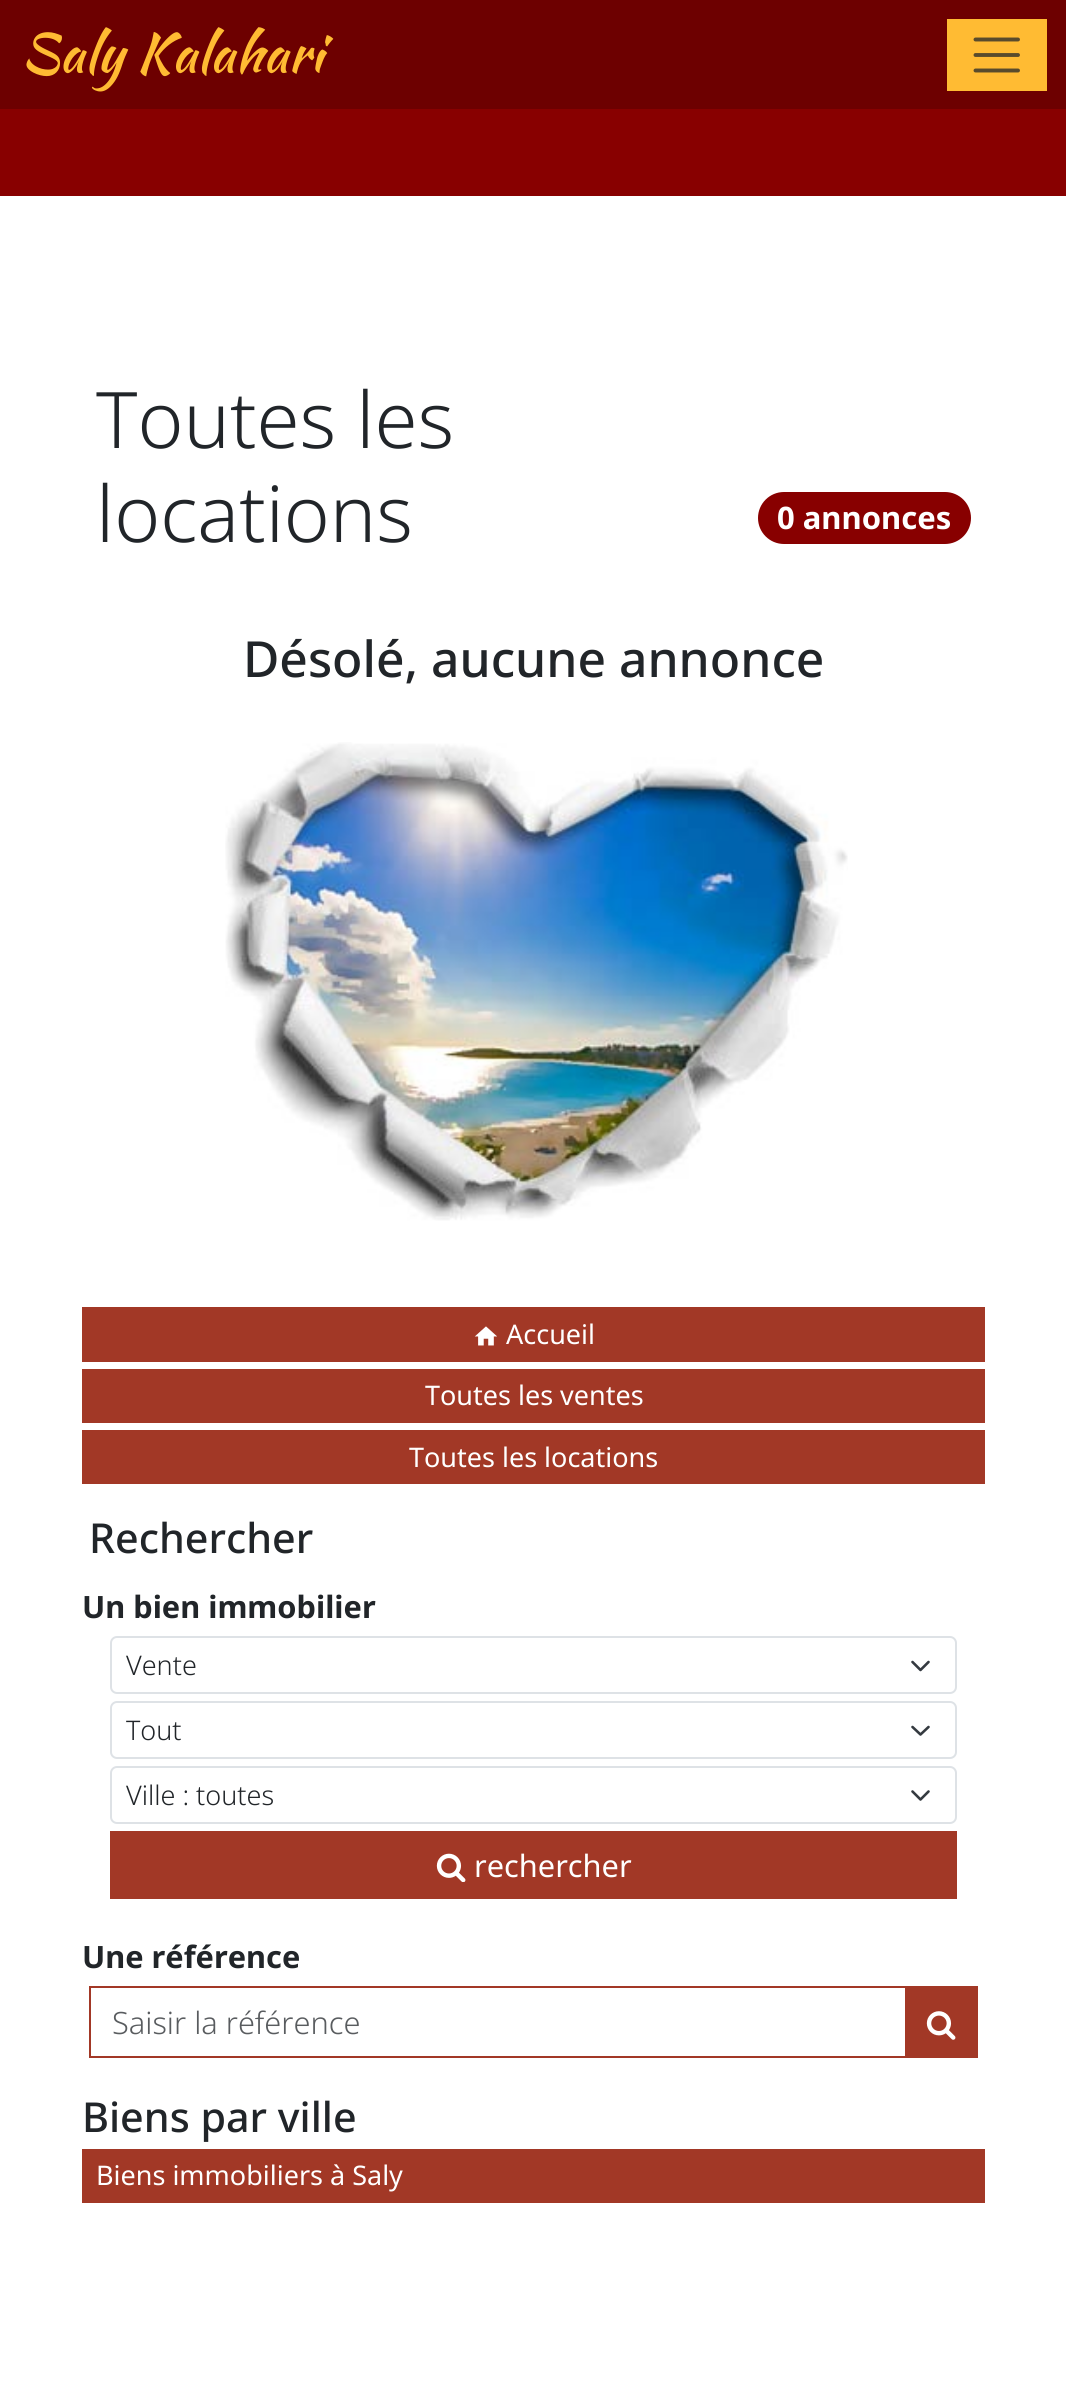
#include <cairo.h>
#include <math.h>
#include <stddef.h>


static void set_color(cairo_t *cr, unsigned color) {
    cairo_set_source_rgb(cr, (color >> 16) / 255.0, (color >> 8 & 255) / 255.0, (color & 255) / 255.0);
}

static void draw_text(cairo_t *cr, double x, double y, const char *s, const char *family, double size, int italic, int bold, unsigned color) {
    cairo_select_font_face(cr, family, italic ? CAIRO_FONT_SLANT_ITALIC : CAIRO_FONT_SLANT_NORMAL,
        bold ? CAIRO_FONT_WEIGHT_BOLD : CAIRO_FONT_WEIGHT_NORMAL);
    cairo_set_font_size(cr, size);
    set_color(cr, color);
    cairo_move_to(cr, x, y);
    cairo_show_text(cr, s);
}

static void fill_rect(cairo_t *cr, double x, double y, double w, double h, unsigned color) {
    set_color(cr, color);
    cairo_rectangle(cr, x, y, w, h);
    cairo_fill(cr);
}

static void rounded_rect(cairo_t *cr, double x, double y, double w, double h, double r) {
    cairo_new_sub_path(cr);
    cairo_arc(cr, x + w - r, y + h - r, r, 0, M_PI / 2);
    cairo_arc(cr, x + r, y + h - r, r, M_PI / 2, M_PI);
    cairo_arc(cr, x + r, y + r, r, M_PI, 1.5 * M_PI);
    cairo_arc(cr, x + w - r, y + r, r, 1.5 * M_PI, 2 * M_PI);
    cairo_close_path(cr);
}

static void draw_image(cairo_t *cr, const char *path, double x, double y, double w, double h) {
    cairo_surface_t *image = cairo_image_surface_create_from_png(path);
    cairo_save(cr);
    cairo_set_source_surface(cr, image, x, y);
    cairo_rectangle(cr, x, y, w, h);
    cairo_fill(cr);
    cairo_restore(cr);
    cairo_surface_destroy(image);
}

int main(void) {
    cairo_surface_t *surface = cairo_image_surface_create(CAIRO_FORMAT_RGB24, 1066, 2385);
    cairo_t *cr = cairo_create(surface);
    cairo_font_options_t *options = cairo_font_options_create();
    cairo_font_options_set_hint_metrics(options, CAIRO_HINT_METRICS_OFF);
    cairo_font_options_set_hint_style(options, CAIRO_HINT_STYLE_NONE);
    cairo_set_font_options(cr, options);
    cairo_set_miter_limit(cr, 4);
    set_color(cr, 0xFFFFFF);
    cairo_paint(cr);
    fill_rect(cr, 0, 0, 1066, 109, 0x6D0000);
    draw_text(cr, 21, 72, "Saly Kalahari", "Kaushan Script", 54, 0, 0, 0xFFBB33);
    fill_rect(cr, 947, 19, 100, 72, 0xFFBB33);
    cairo_new_path(cr);
    cairo_move_to(cr, 975.5, 39.5);
    cairo_line_to(cr, 1018, 39.5);
    cairo_move_to(cr, 975.5, 55);
    cairo_line_to(cr, 1018, 55);
    cairo_move_to(cr, 975.5, 70.5);
    cairo_line_to(cr, 1018, 70.5);
    set_color(cr, 0x594B2C);
    cairo_set_line_width(cr, 3.9);
    cairo_set_line_cap(cr, CAIRO_LINE_CAP_ROUND);
    cairo_stroke(cr);
    fill_rect(cr, 0, 109, 1066, 87, 0x880000);
    draw_text(cr, 96, 448, "Toutes les", "Noto Sans Light", 78, 0, 0, 0x212529);
    draw_text(cr, 96, 542, "locations", "Noto Sans Light", 78, 0, 0, 0x212529);
    set_color(cr, 0x880000);
    rounded_rect(cr, 758, 492, 213, 52, 26);
    cairo_fill(cr);
    draw_text(cr, 777, 529, "0 annonces", "Noto Sans", 31, 0, 1, 0xFFFFFF);
    draw_text(cr, 243, 677, "Désolé, aucune annonce", "Noto Sans Medium", 49.75, 0, 0, 0x212529);
    draw_image(cr, "assets/img1.png", 225, 742, 623, 479);
    fill_rect(cr, 82, 1307, 903, 55, 0xA23826);
    draw_image(cr, "assets/img2.png", 474, 1326, 23, 20);
    draw_text(cr, 506, 1344, "Accueil", "Noto Sans", 27, 0, 0, 0xFFFFFF);
    fill_rect(cr, 82, 1369, 903, 54, 0xA23826);
    draw_text(cr, 425, 1405, "Toutes les ventes", "Noto Sans", 27, 0, 0, 0xFFFFFF);
    fill_rect(cr, 82, 1430, 903, 54, 0xA23826);
    draw_text(cr, 409, 1467, "Toutes les locations", "Noto Sans", 27, 0, 0, 0xFFFFFF);
    draw_text(cr, 89, 1553, "Rechercher", "Noto Sans Medium", 41.25, 0, 0, 0x212529);
    draw_text(cr, 82, 1618, "Un bien immobilier", "Noto Sans", 30.75, 0, 1, 0x212529);
    cairo_new_path(cr);
    cairo_move_to(cr, 912.5, 1662);
    cairo_line_to(cr, 920.5, 1670);
    cairo_line_to(cr, 928.5, 1662);
    set_color(cr, 0x343A40);
    cairo_set_line_width(cr, 2.6);
    cairo_set_line_join(cr, CAIRO_LINE_JOIN_ROUND);
    cairo_stroke(cr);
    rounded_rect(cr, 111, 1637, 845, 56, 6);
    set_color(cr, 0xDEE2E6);
    cairo_set_line_width(cr, 2);
    cairo_set_line_cap(cr, CAIRO_LINE_CAP_BUTT);
    cairo_set_line_join(cr, CAIRO_LINE_JOIN_MITER);
    cairo_stroke(cr);
    draw_text(cr, 126, 1675, "Vente", "Noto Sans Light", 27, 0, 0, 0x212529);
    cairo_new_path(cr);
    cairo_move_to(cr, 912.5, 1727);
    cairo_line_to(cr, 920.5, 1734.5);
    cairo_line_to(cr, 928.5, 1727);
    set_color(cr, 0x343A40);
    cairo_set_line_width(cr, 2.6);
    cairo_set_line_cap(cr, CAIRO_LINE_CAP_ROUND);
    cairo_set_line_join(cr, CAIRO_LINE_JOIN_ROUND);
    cairo_stroke(cr);
    rounded_rect(cr, 111, 1702, 845, 56, 6);
    set_color(cr, 0xDEE2E6);
    cairo_set_line_width(cr, 2);
    cairo_set_line_cap(cr, CAIRO_LINE_CAP_BUTT);
    cairo_set_line_join(cr, CAIRO_LINE_JOIN_MITER);
    cairo_stroke(cr);
    draw_text(cr, 126, 1740, "Tout", "Noto Sans Light", 27, 0, 0, 0x212529);
    cairo_new_path(cr);
    cairo_move_to(cr, 912.5, 1791.5);
    cairo_line_to(cr, 920.5, 1799.5);
    cairo_line_to(cr, 928.5, 1791.5);
    set_color(cr, 0x343A40);
    cairo_set_line_width(cr, 2.6);
    cairo_set_line_cap(cr, CAIRO_LINE_CAP_ROUND);
    cairo_set_line_join(cr, CAIRO_LINE_JOIN_ROUND);
    cairo_stroke(cr);
    rounded_rect(cr, 111, 1767, 845, 56, 6);
    set_color(cr, 0xDEE2E6);
    cairo_set_line_width(cr, 2);
    cairo_set_line_cap(cr, CAIRO_LINE_CAP_BUTT);
    cairo_set_line_join(cr, CAIRO_LINE_JOIN_MITER);
    cairo_stroke(cr);
    draw_text(cr, 126, 1805, "Ville : toutes", "Noto Sans Light", 27, 0, 0, 0x212529);
    fill_rect(cr, 110, 1831, 847, 68, 0xA23826);
    draw_image(cr, "assets/img3.png", 436, 1853, 30, 29);
    draw_text(cr, 474, 1877, "rechercher", "Noto Sans", 30.75, 0, 0, 0xFFFFFF);
    draw_text(cr, 82, 1968, "Une référence", "Noto Sans", 30.75, 0, 1, 0x212529);
    cairo_rectangle(cr, 90, 1987, 816, 70);
    set_color(cr, 0xA23826);
    cairo_stroke(cr);
    draw_text(cr, 112, 2034, "Saisir la référence", "Noto Sans Light", 30.75, 0, 0, 0x595C5F);
    fill_rect(cr, 907, 1986, 71, 72, 0xA23826);
    draw_image(cr, "assets/img4.png", 926, 2011, 30, 29);
    draw_text(cr, 82, 2132, "Biens par ville", "Noto Sans Medium", 41.25, 0, 0, 0x212529);
    fill_rect(cr, 82, 2149, 903, 54, 0xA23826);
    draw_text(cr, 96, 2185, "Biens immobiliers à Saly", "Noto Sans", 27, 0, 0, 0xFFFFFF);
    cairo_surface_write_to_png(surface, "output.png");
    cairo_font_options_destroy(options);
    cairo_destroy(cr);
    cairo_surface_destroy(surface);
    return 0;
}
